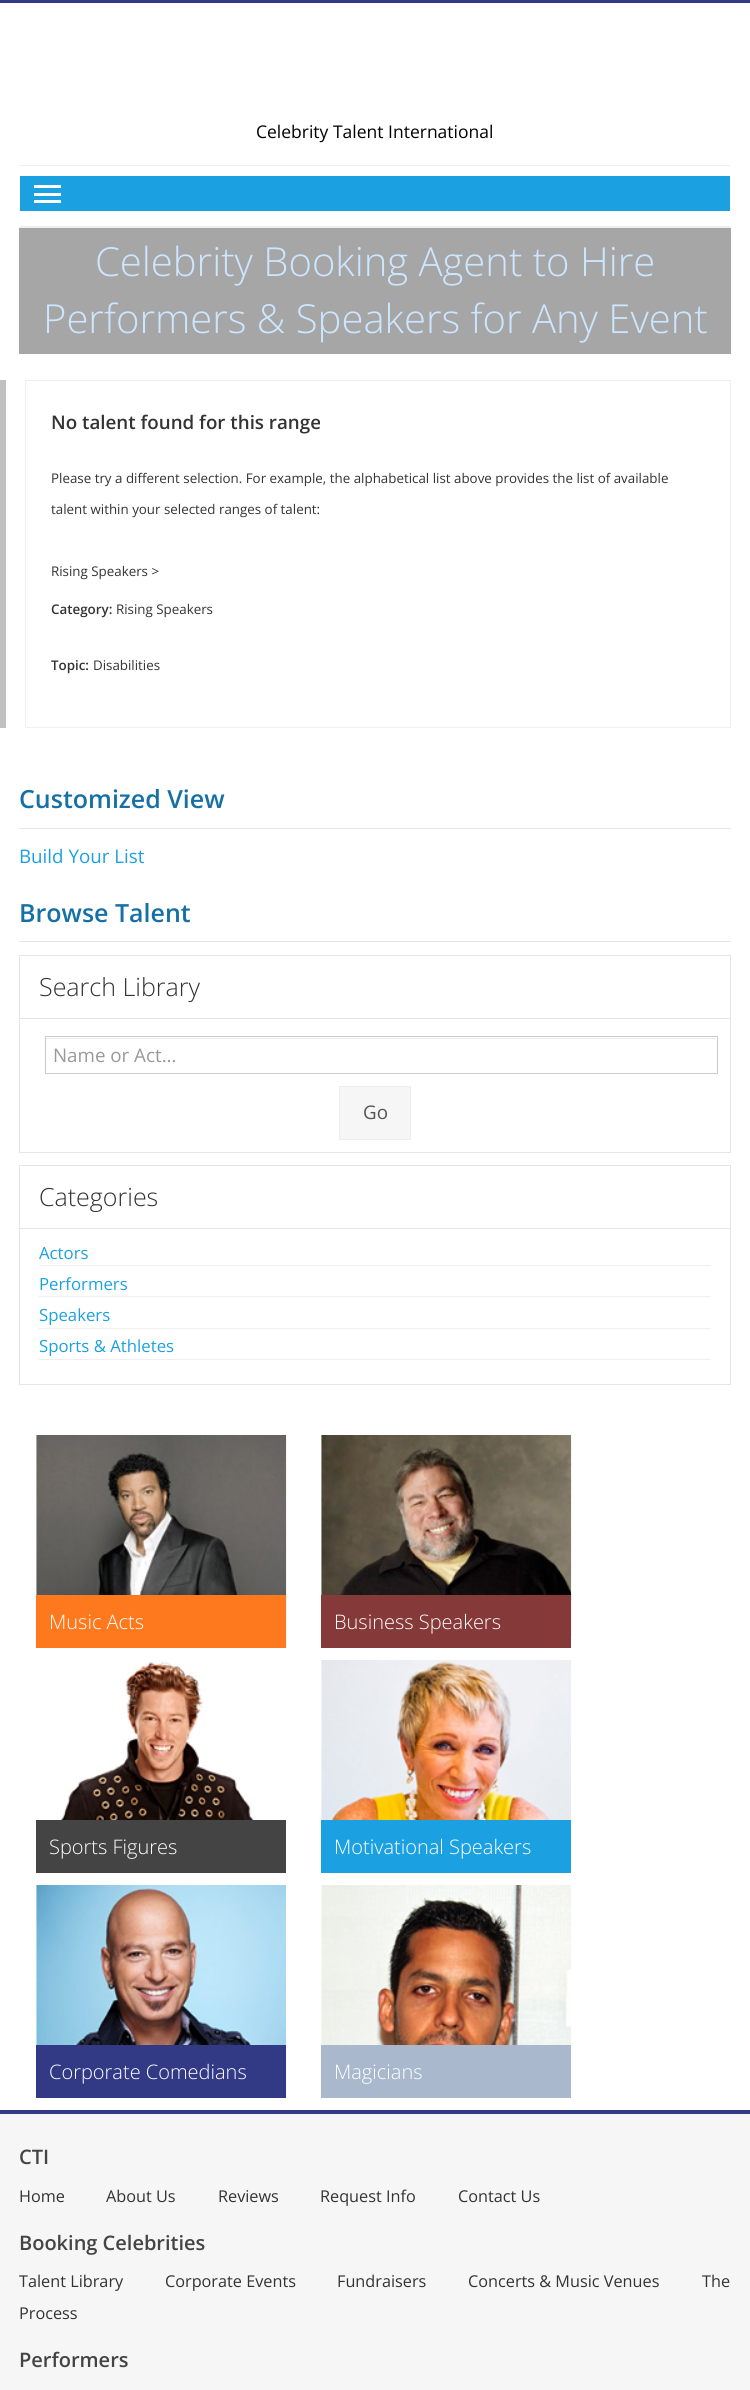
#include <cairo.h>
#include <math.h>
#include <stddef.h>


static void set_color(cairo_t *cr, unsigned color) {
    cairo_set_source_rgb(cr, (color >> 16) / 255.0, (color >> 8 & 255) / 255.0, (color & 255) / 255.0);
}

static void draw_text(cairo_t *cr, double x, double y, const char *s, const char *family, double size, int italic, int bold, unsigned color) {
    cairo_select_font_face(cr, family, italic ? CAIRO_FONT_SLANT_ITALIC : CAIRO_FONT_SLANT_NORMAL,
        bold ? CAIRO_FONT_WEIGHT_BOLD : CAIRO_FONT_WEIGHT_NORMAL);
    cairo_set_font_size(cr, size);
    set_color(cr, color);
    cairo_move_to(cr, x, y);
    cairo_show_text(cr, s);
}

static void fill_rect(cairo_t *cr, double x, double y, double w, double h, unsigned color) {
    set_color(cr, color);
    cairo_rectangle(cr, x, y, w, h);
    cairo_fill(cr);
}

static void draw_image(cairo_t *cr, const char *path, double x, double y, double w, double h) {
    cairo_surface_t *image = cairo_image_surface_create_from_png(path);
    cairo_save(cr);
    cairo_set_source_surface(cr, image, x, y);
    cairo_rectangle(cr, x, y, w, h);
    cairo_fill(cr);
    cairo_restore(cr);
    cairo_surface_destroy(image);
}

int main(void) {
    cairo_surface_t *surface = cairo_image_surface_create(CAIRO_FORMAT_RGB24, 750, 2390);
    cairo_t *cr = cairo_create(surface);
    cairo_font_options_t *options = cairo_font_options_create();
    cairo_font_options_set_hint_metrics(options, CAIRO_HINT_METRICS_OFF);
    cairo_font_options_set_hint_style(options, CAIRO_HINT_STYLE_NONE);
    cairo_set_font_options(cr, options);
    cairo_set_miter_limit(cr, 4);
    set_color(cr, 0xFFFFFF);
    cairo_paint(cr);
    fill_rect(cr, 0, 0, 750, 3, 0x323985);
    draw_text(cr, 256, 138, "Celebrity Talent International", "Open Sans", 17.5, 0, 0, 0x000000);
    set_color(cr, 0xEEEEEE);
    cairo_new_path(cr);
    cairo_move_to(cr, 19, 165);
    cairo_line_to(cr, 731, 165);
    cairo_line_to(cr, 730, 166);
    cairo_line_to(cr, 20, 166);
    cairo_close_path(cr);
    cairo_fill(cr);
    cairo_new_path(cr);
    cairo_move_to(cr, 731, 228);
    cairo_line_to(cr, 19, 228);
    cairo_line_to(cr, 20, 226);
    cairo_line_to(cr, 730, 226);
    cairo_close_path(cr);
    cairo_fill(cr);
    fill_rect(cr, 20, 176, 710, 35, 0x1BA1E2);
    fill_rect(cr, 34, 185, 27, 3, 0xFFFFFF);
    fill_rect(cr, 34, 193, 27, 3, 0xFFFFFF);
    fill_rect(cr, 34, 200, 27, 3, 0xFFFFFF);
    fill_rect(cr, 19, 228, 712, 126, 0xA6A6A6);
    draw_text(cr, 95, 276, "Celebrity Booking Agent to Hire", "Open Sans Light", 40, 0, 0, 0xCCE6FF);
    draw_text(cr, 43, 333, "Performers & Speakers for Any Event", "Open Sans Light", 40, 0, 0, 0xCCE6FF);
    fill_rect(cr, 0, 380, 6, 348, 0xC0C0C0);
    cairo_rectangle(cr, 25.5, 380.5, 705, 347);
    set_color(cr, 0xEFEFEF);
    cairo_set_line_width(cr, 1);
    cairo_stroke(cr);
    draw_text(cr, 51, 429, "No talent found for this range", "Open Sans SemiBold", 18.75, 0, 0, 0x333333);
    draw_text(cr, 51, 483, "Please try a different selection. For example, the alphabetical list above provides the list of available", "Open Sans", 13.35, 0, 0, 0x333333);
    draw_text(cr, 51, 514, "talent within your selected ranges of talent:", "Open Sans", 13.35, 0, 0, 0x333333);
    draw_text(cr, 51, 576, "Rising Speakers >", "Open Sans", 13.35, 0, 0, 0x333333);
    draw_text(cr, 51, 614, "Category:", "Open Sans SemiBold", 13.35, 0, 0, 0x333333);
    draw_text(cr, 116, 614, "Rising Speakers", "Open Sans", 13.35, 0, 0, 0x333333);
    draw_text(cr, 51, 670, "Topic:", "Open Sans SemiBold", 13.35, 0, 0, 0x333333);
    draw_text(cr, 93, 670, "Disabilities", "Open Sans", 13.35, 0, 0, 0x333333);
    draw_text(cr, 19, 808, "Customized View", "Open Sans SemiBold", 25, 0, 0, 0x1570A6);
    fill_rect(cr, 19, 828, 712, 1, 0xE6E6E6);
    draw_text(cr, 19, 863, "Build Your List", "Open Sans", 18.75, 0, 0, 0x1BA1E2);
    draw_text(cr, 19, 922, "Browse Talent", "Open Sans SemiBold", 25, 0, 0, 0x1570A6);
    fill_rect(cr, 19, 941, 712, 1, 0xE6E6E6);
    cairo_rectangle(cr, 19.5, 955.5, 711, 197);
    set_color(cr, 0xE5E5E5);
    cairo_stroke(cr);
    draw_text(cr, 39, 996, "Search Library", "Open Sans Light", 25, 0, 0, 0x333333);
    fill_rect(cr, 20, 1018, 710, 1, 0xE5E5E5);
    fill_rect(cr, 46, 1038, 670, 1, 0xECECEC);
    cairo_rectangle(cr, 45.5, 1036.5, 672, 37);
    set_color(cr, 0xCCCCCC);
    cairo_stroke(cr);
    draw_text(cr, 53, 1062, "Name or Act...", "Open Sans", 18.75, 0, 0, 0x999999);
    set_color(cr, 0xF6F6F6);
    cairo_rectangle(cr, 339.5, 1086.5, 71, 53);
    cairo_fill_preserve(cr);
    set_color(cr, 0xEEEEEE);
    cairo_stroke(cr);
    draw_text(cr, 363, 1119, "Go", "Open Sans", 18.75, 0, 0, 0x555555);
    cairo_rectangle(cr, 19.5, 1165.5, 711, 219);
    set_color(cr, 0xE5E5E5);
    cairo_stroke(cr);
    draw_text(cr, 39, 1206, "Categories", "Open Sans Light", 25, 0, 0, 0x333333);
    fill_rect(cr, 20, 1228, 710, 1, 0xE5E5E5);
    fill_rect(cr, 39, 1265, 672, 1, 0xEFEFEF);
    draw_text(cr, 39, 1259, "Actors", "Open Sans", 16.75, 0, 0, 0x1BA1E2);
    fill_rect(cr, 39, 1296, 672, 1, 0xEFEFEF);
    draw_text(cr, 39, 1290, "Performers", "Open Sans", 16.75, 0, 0, 0x1BA1E2);
    fill_rect(cr, 39, 1328, 672, 1, 0xEFEFEF);
    draw_text(cr, 39, 1321, "Speakers", "Open Sans", 16.75, 0, 0, 0x1BA1E2);
    fill_rect(cr, 39, 1359, 672, 1, 0xEFEFEF);
    draw_text(cr, 39, 1352, "Sports & Athletes", "Open Sans", 16.75, 0, 0, 0x1BA1E2);
    draw_image(cr, "assets/img1.png", 36, 1435, 251, 213);
    fill_rect(cr, 36, 1595, 250, 53, 0xFE781E);
    draw_text(cr, 49, 1629, "Music Acts", "Open Sans Light", 20, 0, 0, 0xFFFFFF);
    draw_image(cr, "assets/img2.png", 321, 1435, 251, 201);
    fill_rect(cr, 321, 1595, 250, 53, 0x863939);
    draw_text(cr, 334, 1629, "Business Speakers", "Open Sans Light", 20, 0, 0, 0xFFFFFF);
    draw_image(cr, "assets/img3.png", 42, 1661, 231, 159);
    fill_rect(cr, 36, 1820, 250, 53, 0x444444);
    draw_text(cr, 49, 1854, "Sports Figures", "Open Sans Light", 20, 0, 0, 0xFFFFFF);
    draw_image(cr, "assets/img4.png", 321, 1660, 250, 160);
    fill_rect(cr, 321, 1820, 250, 53, 0x1BA1E2);
    draw_text(cr, 334, 1854, "Motivational Speakers", "Open Sans Light", 20, 0, 0, 0xFFFFFF);
    draw_image(cr, "assets/img5.png", 36, 1885, 251, 213);
    fill_rect(cr, 36, 2045, 250, 53, 0x323985);
    draw_text(cr, 49, 2079, "Corporate Comedians", "Open Sans Light", 20, 0, 0, 0xFFFFFF);
    draw_image(cr, "assets/img6.png", 321, 1885, 250, 160);
    fill_rect(cr, 321, 2045, 250, 53, 0xA9B8CD);
    draw_text(cr, 334, 2079, "Magicians", "Open Sans Light", 20, 0, 0, 0xFFFFFF);
    fill_rect(cr, 0, 2114, 750, 276, 0xF6F6F6);
    fill_rect(cr, 0, 2110, 750, 4, 0x323985);
    draw_text(cr, 19, 2164, "CTI", "Open Sans SemiBold", 20, 0, 0, 0x444444);
    draw_text(cr, 19, 2202, "Home", "Open Sans", 16.25, 0, 0, 0x333333);
    draw_text(cr, 106, 2202, "About Us", "Open Sans", 16.25, 0, 0, 0x333333);
    draw_text(cr, 218, 2202, "Reviews", "Open Sans", 16.25, 0, 0, 0x333333);
    draw_text(cr, 320, 2202, "Request Info", "Open Sans", 16.25, 0, 0, 0x333333);
    draw_text(cr, 458, 2202, "Contact Us", "Open Sans", 16.25, 0, 0, 0x333333);
    draw_text(cr, 19, 2250, "Booking Celebrities", "Open Sans SemiBold", 20, 0, 0, 0x444444);
    draw_text(cr, 19, 2287, "Talent Library", "Open Sans", 16.25, 0, 0, 0x333333);
    draw_text(cr, 165, 2287, "Corporate Events", "Open Sans", 16.25, 0, 0, 0x333333);
    draw_text(cr, 337, 2287, "Fundraisers", "Open Sans", 16.25, 0, 0, 0x333333);
    draw_text(cr, 468, 2287, "Concerts & Music Venues", "Open Sans", 16.25, 0, 0, 0x333333);
    draw_text(cr, 702, 2287, "The", "Open Sans", 16.25, 0, 0, 0x333333);
    draw_text(cr, 19, 2319, "Process", "Open Sans", 16.25, 0, 0, 0x333333);
    draw_text(cr, 19, 2367, "Performers", "Open Sans SemiBold", 20, 0, 0, 0x444444);
    cairo_surface_write_to_png(surface, "output.png");
    cairo_font_options_destroy(options);
    cairo_destroy(cr);
    cairo_surface_destroy(surface);
    return 0;
}
